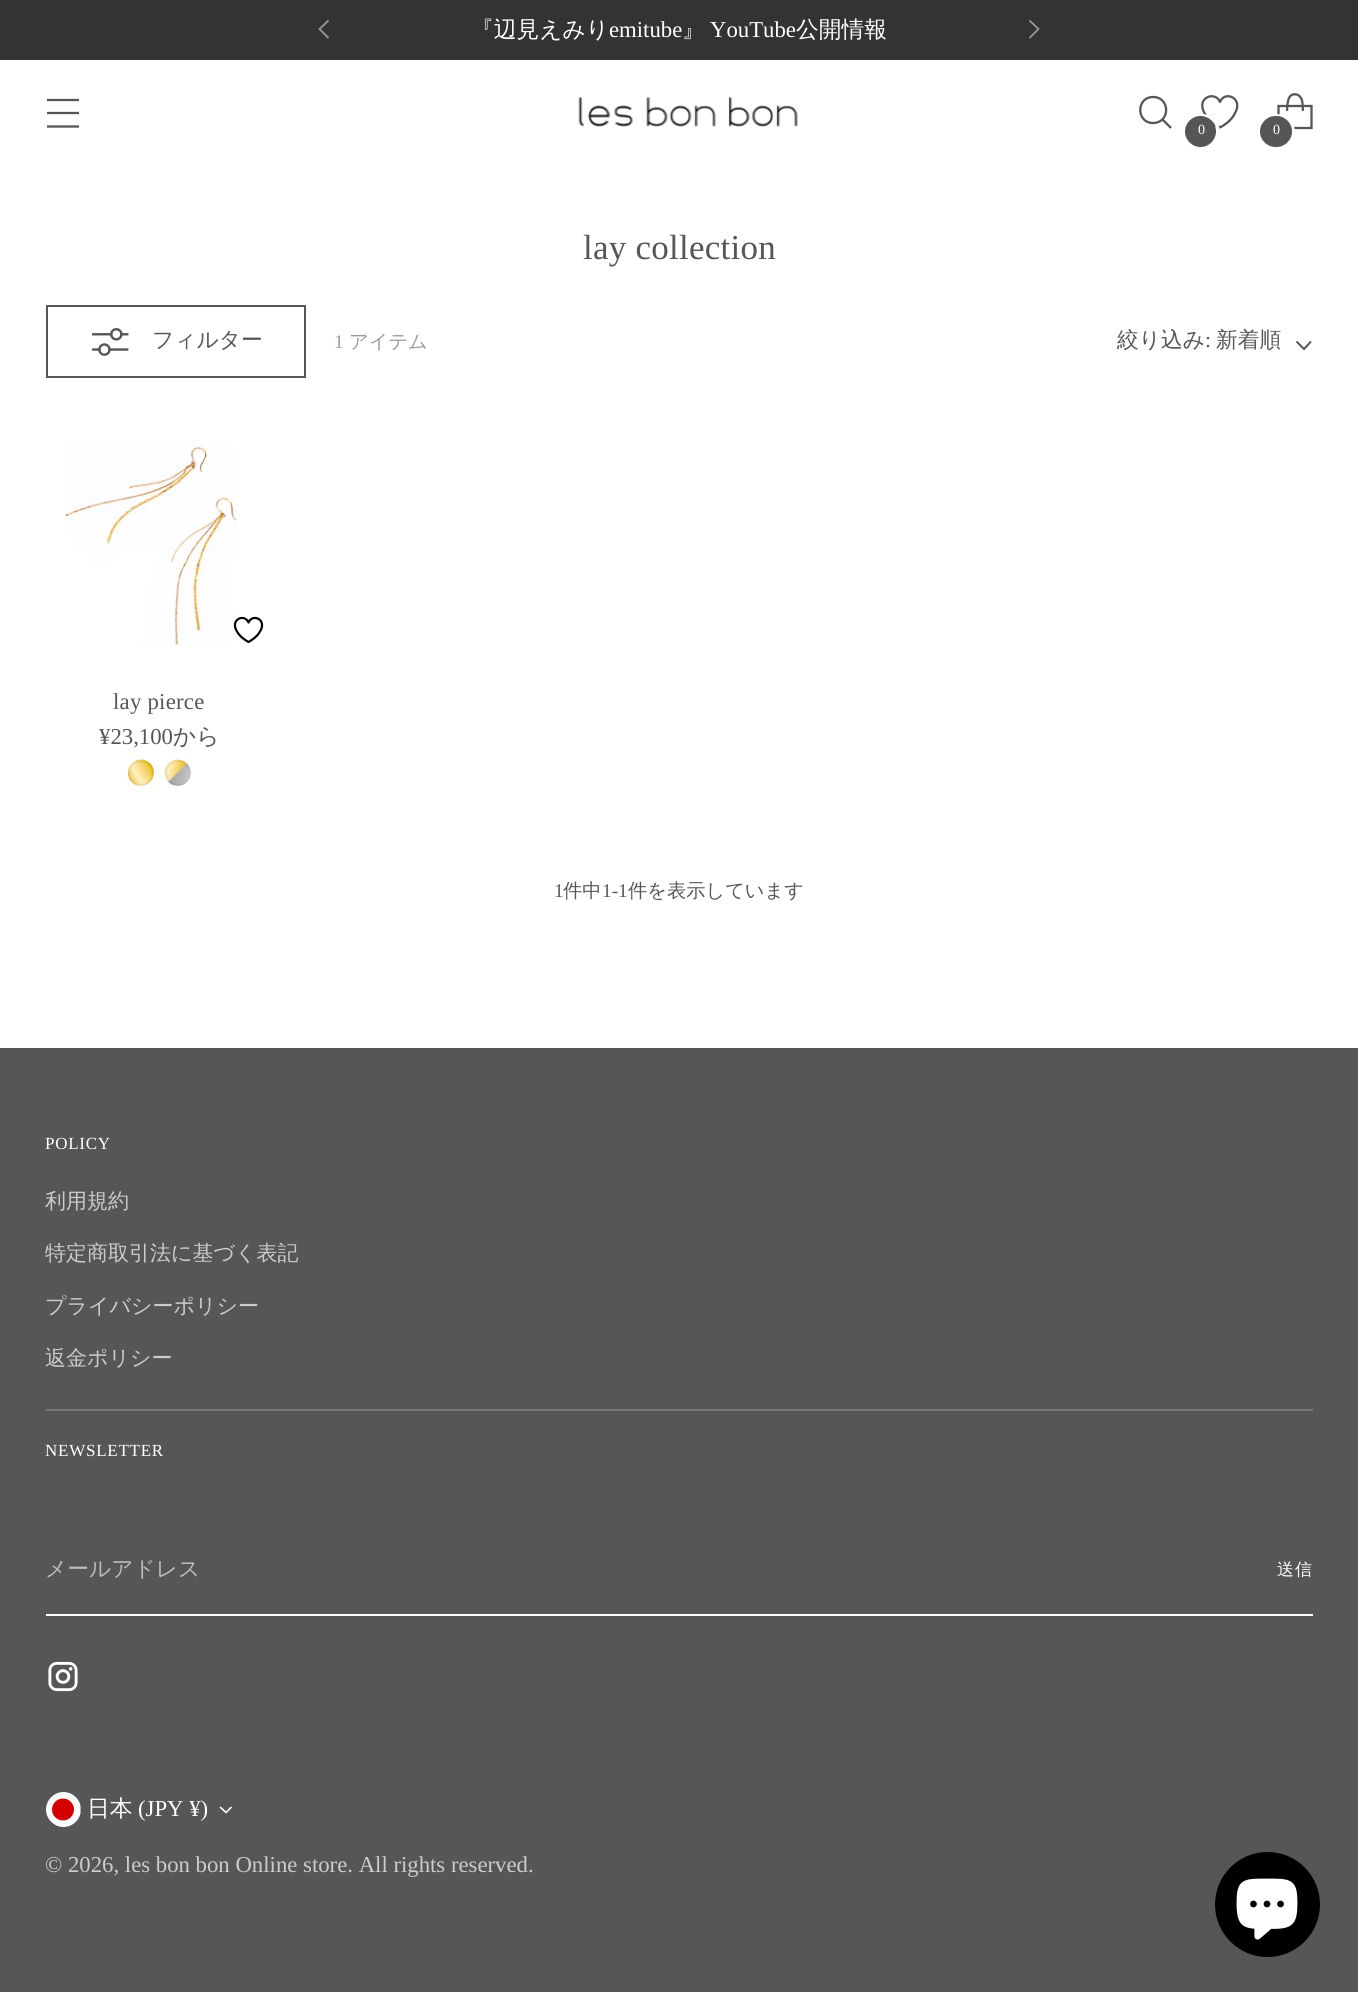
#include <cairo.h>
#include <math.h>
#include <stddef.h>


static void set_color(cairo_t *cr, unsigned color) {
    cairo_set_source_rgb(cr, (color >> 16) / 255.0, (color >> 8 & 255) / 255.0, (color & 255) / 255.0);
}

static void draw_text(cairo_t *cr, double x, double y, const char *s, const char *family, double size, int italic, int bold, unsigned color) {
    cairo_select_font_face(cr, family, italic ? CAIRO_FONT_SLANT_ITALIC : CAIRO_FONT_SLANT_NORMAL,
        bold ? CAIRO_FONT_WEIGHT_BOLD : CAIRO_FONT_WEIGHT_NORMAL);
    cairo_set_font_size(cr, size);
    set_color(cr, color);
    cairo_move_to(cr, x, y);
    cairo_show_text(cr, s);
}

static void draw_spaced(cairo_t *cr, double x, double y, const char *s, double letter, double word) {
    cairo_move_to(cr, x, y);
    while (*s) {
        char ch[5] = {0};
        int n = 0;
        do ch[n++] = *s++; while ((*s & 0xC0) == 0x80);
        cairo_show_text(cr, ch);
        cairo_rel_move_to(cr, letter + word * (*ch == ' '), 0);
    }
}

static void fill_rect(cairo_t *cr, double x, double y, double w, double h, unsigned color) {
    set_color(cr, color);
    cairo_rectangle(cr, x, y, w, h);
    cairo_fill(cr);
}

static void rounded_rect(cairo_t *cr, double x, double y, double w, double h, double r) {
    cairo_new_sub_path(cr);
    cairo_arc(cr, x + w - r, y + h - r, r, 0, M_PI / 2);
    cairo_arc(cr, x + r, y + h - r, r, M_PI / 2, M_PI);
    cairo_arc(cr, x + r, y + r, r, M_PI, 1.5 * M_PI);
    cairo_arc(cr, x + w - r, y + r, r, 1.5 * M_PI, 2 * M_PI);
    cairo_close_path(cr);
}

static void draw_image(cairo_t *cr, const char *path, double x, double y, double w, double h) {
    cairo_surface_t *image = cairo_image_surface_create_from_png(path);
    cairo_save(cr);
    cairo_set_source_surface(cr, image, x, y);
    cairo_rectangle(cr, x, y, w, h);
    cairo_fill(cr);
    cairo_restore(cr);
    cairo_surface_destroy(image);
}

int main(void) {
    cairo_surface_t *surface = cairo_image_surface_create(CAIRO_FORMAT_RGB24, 1358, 1992);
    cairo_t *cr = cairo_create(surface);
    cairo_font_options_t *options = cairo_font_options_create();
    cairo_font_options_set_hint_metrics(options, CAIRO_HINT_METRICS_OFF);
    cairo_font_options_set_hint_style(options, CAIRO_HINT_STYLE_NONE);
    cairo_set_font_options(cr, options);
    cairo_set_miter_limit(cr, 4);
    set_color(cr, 0xFFFFFF);
    cairo_paint(cr);
    fill_rect(cr, 0, 0, 1358, 60, 0x333333);
    draw_text(cr, 471, 37, "『辺見えみり", "WenQuanYi Zen Hei Medium", 22.75, 0, 0, 0xFFFFFF);
    draw_text(cr, 609, 37, "emitube", "Liberation Serif", 22.75, 0, 0, 0xFFFFFF);
    draw_text(cr, 682, 37, "』", "WenQuanYi Zen Hei Medium", 22.75, 0, 0, 0xFFFFFF);
    draw_text(cr, 710, 37, "YouTube", "Liberation Serif", 22.75, 0, 0, 0xFFFFFF);
    draw_text(cr, 796, 37, "公開情報", "WenQuanYi Zen Hei Medium", 22.75, 0, 0, 0xFFFFFF);
    cairo_new_path(cr);
    cairo_move_to(cr, 328.5, 20.5);
    cairo_line_to(cr, 319.5, 29);
    cairo_line_to(cr, 328.5, 38);
    set_color(cr, 0x999999);
    cairo_set_line_width(cr, 1.8);
    cairo_stroke(cr);
    cairo_new_path(cr);
    cairo_move_to(cr, 1029.5, 38);
    cairo_line_to(cr, 1038.5, 29);
    cairo_line_to(cr, 1029.5, 20.5);
    cairo_stroke(cr);
    cairo_new_path(cr);
    cairo_move_to(cr, 47, 113);
    cairo_line_to(cr, 79, 113);
    cairo_move_to(cr, 47, 100);
    cairo_line_to(cr, 79, 100);
    cairo_move_to(cr, 47, 126.5);
    cairo_line_to(cr, 79, 126.5);
    set_color(cr, 0x565656);
    cairo_set_line_width(cr, 2.3);
    cairo_stroke(cr);
    draw_image(cr, "assets/img1.png", 578, 97, 220, 30);
    cairo_new_path(cr);
    cairo_move_to(cr, 1153, 123);
    cairo_curve_to(cr, 1170.5, 123, 1170.5, 97, 1153, 97);
    cairo_curve_to(cr, 1136, 97, 1136, 123, 1153, 123);
    cairo_close_path(cr);
    cairo_set_line_cap(cr, CAIRO_LINE_CAP_ROUND);
    cairo_stroke(cr);
    cairo_new_path(cr);
    cairo_move_to(cr, 1162.5, 119.5);
    cairo_line_to(cr, 1171, 128);
    cairo_set_line_cap(cr, CAIRO_LINE_CAP_BUTT);
    cairo_stroke(cr);
    cairo_new_path(cr);
    cairo_move_to(cr, 1220, 127.5);
    cairo_curve_to(cr, 1214, 124.5, 1208, 120, 1205, 114);
    cairo_curve_to(cr, 1195, 98, 1215, 90, 1220, 102);
    cairo_curve_to(cr, 1224.5, 90, 1244.5, 98, 1234.5, 114);
    cairo_curve_to(cr, 1231.5, 120, 1225.5, 124.5, 1220, 127.5);
    cairo_close_path(cr);
    cairo_set_line_cap(cr, CAIRO_LINE_CAP_ROUND);
    cairo_set_line_join(cr, CAIRO_LINE_JOIN_ROUND);
    cairo_stroke(cr);
    cairo_arc(cr, 1201.5, 132.5, 17, 0, 2 * M_PI);
    set_color(cr, 0xFFFFFF);
    cairo_set_line_width(cr, 3);
    cairo_set_line_cap(cr, CAIRO_LINE_CAP_BUTT);
    cairo_set_line_join(cr, CAIRO_LINE_JOIN_MITER);
    cairo_stroke(cr);
    set_color(cr, 0x565656);
    cairo_arc(cr, 1200.5, 131.5, 15.5, 0, 2 * M_PI);
    cairo_fill(cr);
    draw_text(cr, 1198, 134, "0", "Liberation Serif", 14, 0, 0, 0xFFFFFF);
    cairo_new_path(cr);
    cairo_move_to(cr, 1303, 111);
    cairo_curve_to(cr, 1302.5, 107, 1303, 103, 1301.5, 99);
    cairo_curve_to(cr, 1300.5, 97, 1299, 95, 1296.5, 94.5);
    cairo_curve_to(cr, 1287, 92.5, 1287.5, 105, 1287, 111);
    set_color(cr, 0x565656);
    cairo_set_line_width(cr, 2.3);
    cairo_set_line_join(cr, CAIRO_LINE_JOIN_BEVEL);
    cairo_stroke(cr);
    cairo_new_path(cr);
    cairo_move_to(cr, 1311.5, 128);
    cairo_line_to(cr, 1311.5, 106);
    cairo_line_to(cr, 1278.5, 106);
    cairo_line_to(cr, 1278.5, 128);
    cairo_close_path(cr);
    cairo_set_line_join(cr, CAIRO_LINE_JOIN_MITER);
    cairo_stroke(cr);
    cairo_arc(cr, 1276.5, 132.5, 17, 0, 2 * M_PI);
    set_color(cr, 0xFFFFFF);
    cairo_set_line_width(cr, 3);
    cairo_stroke(cr);
    set_color(cr, 0x565656);
    rounded_rect(cr, 1260, 116, 32, 31, 15.5);
    cairo_fill(cr);
    draw_text(cr, 1273, 134, "0", "Liberation Serif", 14, 0, 0, 0xFFFFFF);
    cairo_set_font_size(cr, 35);
    set_color(cr, 0x565656);
    draw_spaced(cr, 583, 259, "lay collection", 0.25, 0);
    cairo_rectangle(cr, 47, 306, 258, 71);
    cairo_set_line_width(cr, 2);
    cairo_stroke(cr);
    draw_image(cr, "assets/img2.png", 92, 328, 37, 28);
    draw_text(cr, 152, 347, "フィルター", "WenQuanYi Zen Hei Medium", 21.75, 0, 0, 0x565656);
    draw_text(cr, 334, 348, "1", "Liberation Serif", 19.25, 0, 0, 0x9A9A9A);
    draw_text(cr, 349, 348, "アイテム", "WenQuanYi Zen Hei Medium", 19.25, 0, 0, 0x9A9A9A);
    draw_text(cr, 1117, 347, "絞り込み", "WenQuanYi Zen Hei Medium", 21.75, 0, 0, 0x565656);
    draw_text(cr, 1205, 347, ":", "Liberation Serif", 21.75, 0, 0, 0x565656);
    draw_text(cr, 1216, 347, "新着順", "WenQuanYi Zen Hei Medium", 21.75, 0, 0, 0x565656);
    cairo_new_path(cr);
    cairo_move_to(cr, 1296.5, 341.5);
    cairo_line_to(cr, 1304, 349);
    cairo_line_to(cr, 1311, 341.5);
    cairo_stroke(cr);
    draw_image(cr, "assets/img3.png", 64, 442, 174, 204);
    cairo_new_path(cr);
    cairo_move_to(cr, 248.5, 642);
    cairo_curve_to(cr, 244, 639.5, 239.5, 636, 237, 631.5);
    cairo_curve_to(cr, 229.5, 619.5, 244.5, 613, 248.5, 622.5);
    cairo_curve_to(cr, 252.5, 613, 267.5, 619.5, 260, 631.5);
    cairo_curve_to(cr, 257.5, 636, 253, 639.5, 248.5, 642);
    cairo_close_path(cr);
    set_color(cr, 0x000000);
    cairo_set_line_width(cr, 2.2);
    cairo_set_line_cap(cr, CAIRO_LINE_CAP_ROUND);
    cairo_set_line_join(cr, CAIRO_LINE_JOIN_ROUND);
    cairo_stroke(cr);
    cairo_select_font_face(cr, "Liberation Serif", CAIRO_FONT_SLANT_NORMAL, CAIRO_FONT_WEIGHT_NORMAL);
    cairo_set_font_size(cr, 22.75);
    set_color(cr, 0x565656);
    draw_spaced(cr, 113, 709, "lay pierce", 0.25, 0);
    draw_text(cr, 99, 744, "¥23,100", "Liberation Serif", 22.75, 0, 0, 0x565656);
    draw_text(cr, 173, 744, "から", "WenQuanYi Zen Hei Medium", 22.75, 0, 0, 0x565656);
    draw_image(cr, "assets/img4.png", 127, 759, 27, 27);
    cairo_arc(cr, 141, 773, 12, 0, 2 * M_PI);
    cairo_set_source_rgba(cr, 0, 0, 0, 0.07);
    cairo_set_line_width(cr, 2);
    cairo_set_line_cap(cr, CAIRO_LINE_CAP_BUTT);
    cairo_set_line_join(cr, CAIRO_LINE_JOIN_MITER);
    cairo_stroke(cr);
    draw_image(cr, "assets/img5.png", 164, 759, 27, 27);
    cairo_arc(cr, 178, 773, 12, 0, 2 * M_PI);
    cairo_stroke(cr);
    draw_text(cr, 554, 897, "1", "Liberation Serif", 19.25, 0, 0, 0x565656);
    draw_text(cr, 563, 897, "件中", "WenQuanYi Zen Hei Medium", 19.25, 0, 0, 0x565656);
    draw_text(cr, 602, 897, "1-1", "Liberation Serif", 19.25, 0, 0, 0x565656);
    draw_text(cr, 628, 897, "件を表示しています", "WenQuanYi Zen Hei Medium", 19.25, 0, 0, 0x565656);
    fill_rect(cr, 0, 1048, 1358, 944, 0x565656);
    fill_rect(cr, 46, 1409, 1267, 2, 0x787878);
    cairo_select_font_face(cr, "Liberation Serif", CAIRO_FONT_SLANT_NORMAL, CAIRO_FONT_WEIGHT_NORMAL);
    cairo_set_font_size(cr, 17);
    set_color(cr, 0xFFFFFF);
    draw_spaced(cr, 45, 1149, "POLICY", 0.75, 0);
    draw_text(cr, 45, 1208, "利用規約", "WenQuanYi Zen Hei Medium", 21, 0, 0, 0xCCCCCC);
    draw_text(cr, 45, 1260, "特定商取引法に基づく表記", "WenQuanYi Zen Hei Medium", 21, 0, 0, 0xCCCCCC);
    draw_text(cr, 45, 1313, "プライバシーポリシー", "WenQuanYi Zen Hei Medium", 21, 0, 0, 0xCCCCCC);
    draw_text(cr, 45, 1365, "返金ポリシー", "WenQuanYi Zen Hei Medium", 21, 0, 0, 0xCCCCCC);
    cairo_select_font_face(cr, "Liberation Serif", CAIRO_FONT_SLANT_NORMAL, CAIRO_FONT_WEIGHT_NORMAL);
    cairo_set_font_size(cr, 17);
    set_color(cr, 0xFFFFFF);
    draw_spaced(cr, 45, 1456, "NEWSLETTER", 0.75, 0);
    fill_rect(cr, 46, 1614, 1267, 2, 0xFFFFFF);
    draw_text(cr, 45, 1576, "メールアドレス", "WenQuanYi Zen Hei Medium", 21.75, 0, 0, 0xBBBBBB);
    cairo_set_font_size(cr, 17);
    set_color(cr, 0xFFFFFF);
    draw_spaced(cr, 1277, 1575, "送信", 1, 0);
    draw_image(cr, "assets/img6.png", 48, 1661, 30, 31);
    cairo_new_path(cr);
    cairo_move_to(cr, 63.5, 1792);
    cairo_curve_to(cr, 71.5, 1792, 78.5, 1797.5, 80.5, 1805.5);
    cairo_line_to(cr, 80.5, 1813.5);
    cairo_curve_to(cr, 78.5, 1821.5, 71.5, 1827, 63.5, 1827);
    cairo_curve_to(cr, 54, 1827, 46, 1819, 46, 1809.5);
    cairo_curve_to(cr, 46, 1800, 54, 1792, 63.5, 1792);
    cairo_close_path(cr);
    cairo_fill(cr);
    set_color(cr, 0xD30000);
    cairo_arc(cr, 63, 1809.5, 11, 0, 2 * M_PI);
    cairo_fill(cr);
    draw_text(cr, 87, 1816, "日本", "WenQuanYi Zen Hei Medium", 22.75, 0, 0, 0xFFFFFF);
    draw_text(cr, 138, 1816, "(JPY ¥)", "Liberation Serif", 22.75, 0, 0, 0xFFFFFF);
    cairo_new_path(cr);
    cairo_move_to(cr, 220, 1807);
    cairo_line_to(cr, 226, 1812.5);
    cairo_line_to(cr, 231.5, 1807);
    cairo_set_line_width(cr, 1.6);
    cairo_stroke(cr);
    draw_text(cr, 45, 1872, "© 2026, les bon bon Online store. All rights reserved.", "Liberation Serif", 22.75, 0, 0, 0xCCCCCC);
    set_color(cr, 0x000000);
    cairo_new_path(cr);
    cairo_arc(cr, 1267.5, 1904.5, 52.5, 0, 2 * M_PI);
    cairo_fill(cr);
    draw_image(cr, "assets/img7.png", 1236, 1878, 62, 62);
    cairo_surface_write_to_png(surface, "output.png");
    cairo_font_options_destroy(options);
    cairo_destroy(cr);
    cairo_surface_destroy(surface);
    return 0;
}
